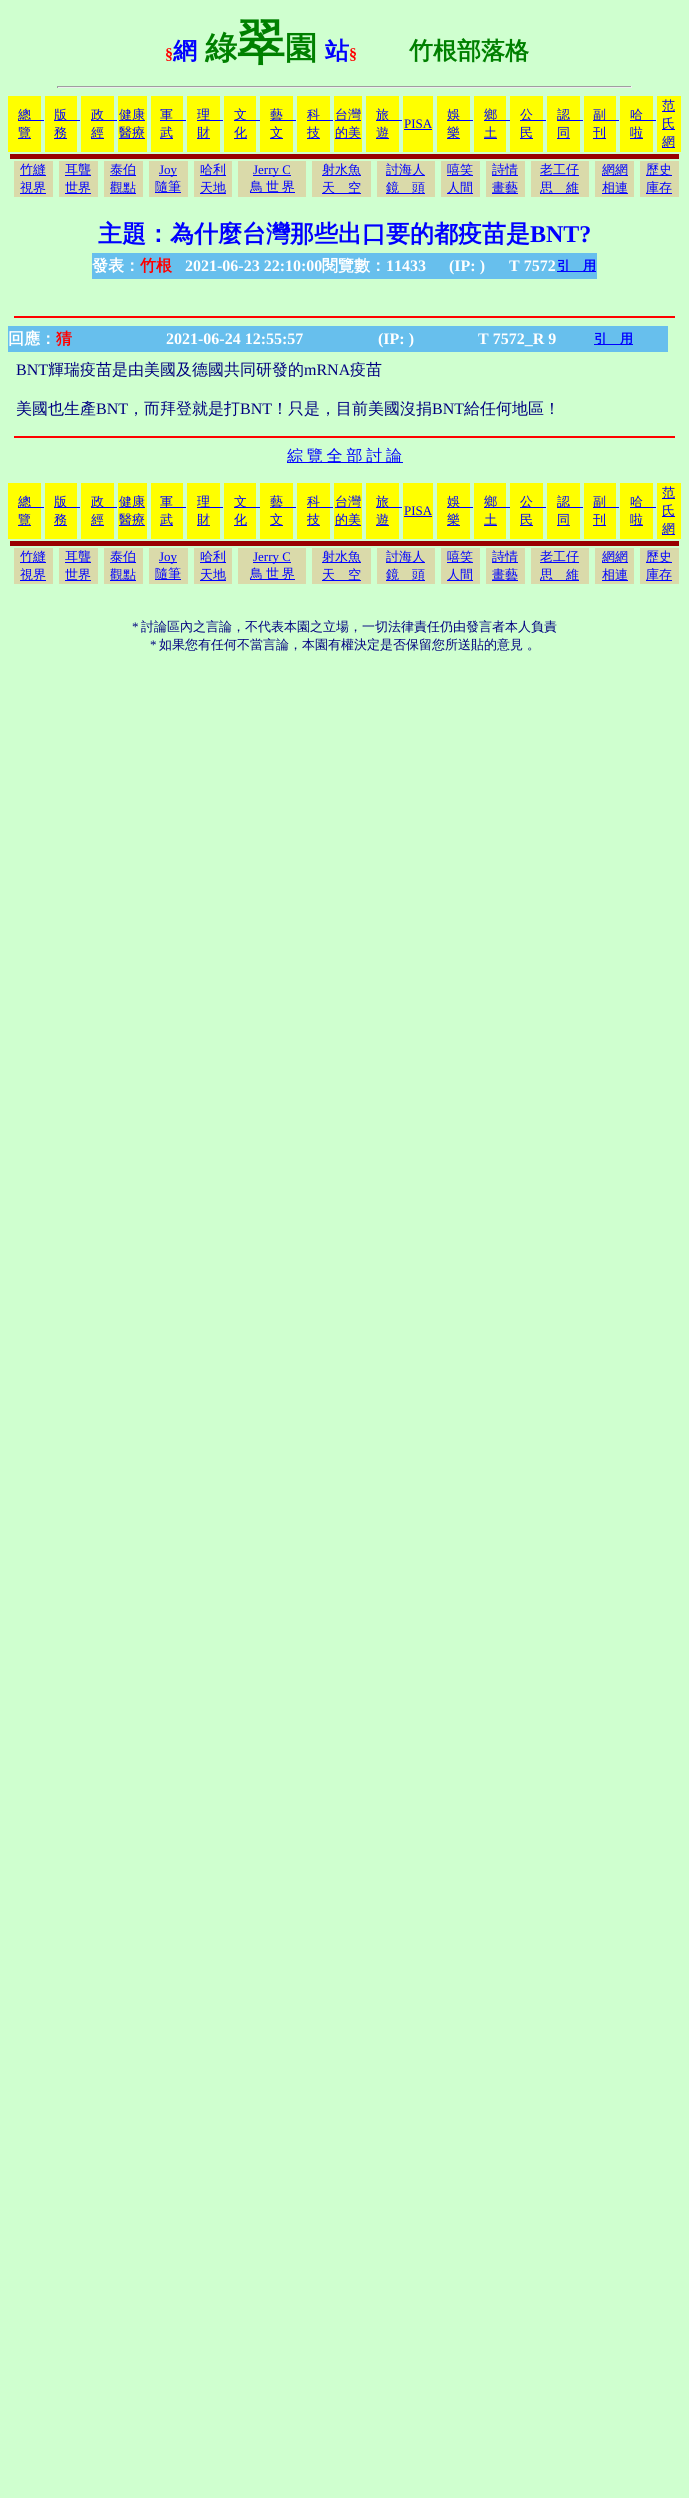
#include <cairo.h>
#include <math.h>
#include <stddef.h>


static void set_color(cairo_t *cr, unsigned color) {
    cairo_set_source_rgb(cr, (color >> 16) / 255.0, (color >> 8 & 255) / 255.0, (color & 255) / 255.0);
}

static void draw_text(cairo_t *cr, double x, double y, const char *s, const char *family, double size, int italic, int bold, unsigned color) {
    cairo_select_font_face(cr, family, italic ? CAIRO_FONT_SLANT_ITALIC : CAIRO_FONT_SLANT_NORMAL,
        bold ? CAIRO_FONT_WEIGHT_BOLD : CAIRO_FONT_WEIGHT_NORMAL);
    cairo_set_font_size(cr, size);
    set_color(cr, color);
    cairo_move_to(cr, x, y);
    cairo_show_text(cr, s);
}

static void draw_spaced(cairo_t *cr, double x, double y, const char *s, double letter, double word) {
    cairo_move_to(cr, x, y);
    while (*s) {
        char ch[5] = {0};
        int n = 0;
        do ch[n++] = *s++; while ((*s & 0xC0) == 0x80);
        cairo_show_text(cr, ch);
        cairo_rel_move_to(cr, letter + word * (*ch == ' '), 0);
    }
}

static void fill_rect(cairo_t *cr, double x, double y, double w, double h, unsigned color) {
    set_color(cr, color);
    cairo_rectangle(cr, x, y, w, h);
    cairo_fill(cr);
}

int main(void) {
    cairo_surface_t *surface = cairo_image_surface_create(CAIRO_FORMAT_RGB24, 689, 2498);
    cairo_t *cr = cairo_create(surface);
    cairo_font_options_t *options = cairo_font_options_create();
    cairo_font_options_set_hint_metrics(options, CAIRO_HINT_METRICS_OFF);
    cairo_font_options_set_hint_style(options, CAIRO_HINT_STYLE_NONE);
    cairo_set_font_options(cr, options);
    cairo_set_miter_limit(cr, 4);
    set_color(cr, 0xCFFFCF);
    cairo_paint(cr);
    draw_text(cr, 165, 59, "§", "Liberation Serif", 16, 0, 1, 0xFF0000);
    draw_text(cr, 173, 59, "網", "WenQuanYi Zen Hei", 24, 0, 1, 0x0000FF);
    draw_text(cr, 205, 59, "綠", "WenQuanYi Zen Hei", 32, 0, 1, 0x008000);
    draw_text(cr, 237, 59, "翠", "WenQuanYi Zen Hei", 48, 0, 1, 0x008000);
    draw_text(cr, 285, 59, "園", "WenQuanYi Zen Hei", 32, 0, 1, 0x008000);
    draw_text(cr, 325, 59, "站", "WenQuanYi Zen Hei", 24, 0, 1, 0x0000FF);
    draw_text(cr, 349, 59, "§", "Liberation Serif", 16, 0, 1, 0xFF0000);
    draw_text(cr, 409, 59, "竹根部落格", "WenQuanYi Zen Hei", 24, 0, 1, 0x008000);
    fill_rect(cr, 57, 86, 575, 1, 0x9F9F9F);
    fill_rect(cr, 631, 86, 1, 2, 0xEEEEEE);
    fill_rect(cr, 57, 87, 575, 1, 0xEEEEEE);
    fill_rect(cr, 57, 86, 1, 2, 0x9F9F9F);
    fill_rect(cr, 8, 96, 33, 56, 0xFFFF00);
    fill_rect(cr, 18, 120, 26, 1, 0x0000FF);
    draw_text(cr, 18, 119, "總", "WenQuanYi Zen Hei Medium", 13, 0, 0, 0x0000FF);
    fill_rect(cr, 18, 138, 13, 1, 0x0000FF);
    draw_text(cr, 18, 137, "覽", "WenQuanYi Zen Hei Medium", 13, 0, 0, 0x0000FF);
    fill_rect(cr, 45, 96, 32, 56, 0xFFFF00);
    fill_rect(cr, 54, 120, 26, 1, 0x0000FF);
    draw_text(cr, 54, 119, "版", "WenQuanYi Zen Hei Medium", 13, 0, 0, 0x0000FF);
    fill_rect(cr, 54, 138, 13, 1, 0x0000FF);
    draw_text(cr, 54, 137, "務", "WenQuanYi Zen Hei Medium", 13, 0, 0, 0x0000FF);
    fill_rect(cr, 81, 96, 33, 56, 0xFFFF00);
    fill_rect(cr, 91, 120, 26, 1, 0x0000FF);
    draw_text(cr, 91, 119, "政", "WenQuanYi Zen Hei Medium", 13, 0, 0, 0x0000FF);
    fill_rect(cr, 91, 138, 13, 1, 0x0000FF);
    draw_text(cr, 91, 137, "經", "WenQuanYi Zen Hei Medium", 13, 0, 0, 0x0000FF);
    fill_rect(cr, 118, 96, 29, 56, 0xFFFF00);
    fill_rect(cr, 119, 120, 26, 1, 0x0000FF);
    draw_text(cr, 119, 119, "健康", "WenQuanYi Zen Hei Medium", 13, 0, 0, 0x0000FF);
    fill_rect(cr, 119, 138, 26, 1, 0x0000FF);
    draw_text(cr, 119, 137, "醫療", "WenQuanYi Zen Hei Medium", 13, 0, 0, 0x0000FF);
    fill_rect(cr, 151, 96, 32, 56, 0xFFFF00);
    fill_rect(cr, 160, 120, 26, 1, 0x0000FF);
    draw_text(cr, 160, 119, "軍", "WenQuanYi Zen Hei Medium", 13, 0, 0, 0x0000FF);
    fill_rect(cr, 160, 138, 13, 1, 0x0000FF);
    draw_text(cr, 160, 137, "武", "WenQuanYi Zen Hei Medium", 13, 0, 0, 0x0000FF);
    fill_rect(cr, 187, 96, 33, 56, 0xFFFF00);
    fill_rect(cr, 197, 120, 26, 1, 0x0000FF);
    draw_text(cr, 197, 119, "理", "WenQuanYi Zen Hei Medium", 13, 0, 0, 0x0000FF);
    fill_rect(cr, 197, 138, 13, 1, 0x0000FF);
    draw_text(cr, 197, 137, "財", "WenQuanYi Zen Hei Medium", 13, 0, 0, 0x0000FF);
    fill_rect(cr, 224, 96, 32, 56, 0xFFFF00);
    fill_rect(cr, 234, 120, 26, 1, 0x0000FF);
    draw_text(cr, 234, 119, "文", "WenQuanYi Zen Hei Medium", 13, 0, 0, 0x0000FF);
    fill_rect(cr, 234, 138, 13, 1, 0x0000FF);
    draw_text(cr, 234, 137, "化", "WenQuanYi Zen Hei Medium", 13, 0, 0, 0x0000FF);
    fill_rect(cr, 260, 96, 33, 56, 0xFFFF00);
    fill_rect(cr, 270, 120, 26, 1, 0x0000FF);
    draw_text(cr, 270, 119, "藝", "WenQuanYi Zen Hei Medium", 13, 0, 0, 0x0000FF);
    fill_rect(cr, 270, 138, 13, 1, 0x0000FF);
    draw_text(cr, 270, 137, "文", "WenQuanYi Zen Hei Medium", 13, 0, 0, 0x0000FF);
    fill_rect(cr, 297, 96, 33, 56, 0xFFFF00);
    fill_rect(cr, 307, 120, 26, 1, 0x0000FF);
    draw_text(cr, 307, 119, "科", "WenQuanYi Zen Hei Medium", 13, 0, 0, 0x0000FF);
    fill_rect(cr, 307, 138, 13, 1, 0x0000FF);
    draw_text(cr, 307, 137, "技", "WenQuanYi Zen Hei Medium", 13, 0, 0, 0x0000FF);
    fill_rect(cr, 334, 96, 28, 56, 0xFFFF00);
    fill_rect(cr, 335, 120, 26, 1, 0x0000FF);
    draw_text(cr, 335, 119, "台灣", "WenQuanYi Zen Hei Medium", 13, 0, 0, 0x0000FF);
    fill_rect(cr, 335, 138, 26, 1, 0x0000FF);
    draw_text(cr, 335, 137, "的美", "WenQuanYi Zen Hei Medium", 13, 0, 0, 0x0000FF);
    fill_rect(cr, 366, 96, 33, 56, 0xFFFF00);
    fill_rect(cr, 376, 120, 26, 1, 0x0000FF);
    draw_text(cr, 376, 119, "旅", "WenQuanYi Zen Hei Medium", 13, 0, 0, 0x0000FF);
    fill_rect(cr, 376, 138, 13, 1, 0x0000FF);
    draw_text(cr, 376, 137, "遊", "WenQuanYi Zen Hei Medium", 13, 0, 0, 0x0000FF);
    fill_rect(cr, 403, 96, 30, 56, 0xFFFF00);
    draw_text(cr, 404, 128, "PISA", "Liberation Serif", 13, 0, 0, 0x0000FF);
    fill_rect(cr, 404, 129, 28, 1, 0x0000FF);
    fill_rect(cr, 437, 96, 33, 56, 0xFFFF00);
    fill_rect(cr, 447, 120, 26, 1, 0x0000FF);
    draw_text(cr, 447, 119, "娛", "WenQuanYi Zen Hei Medium", 13, 0, 0, 0x0000FF);
    fill_rect(cr, 447, 138, 13, 1, 0x0000FF);
    draw_text(cr, 447, 137, "樂", "WenQuanYi Zen Hei Medium", 13, 0, 0, 0x0000FF);
    fill_rect(cr, 474, 96, 32, 56, 0xFFFF00);
    fill_rect(cr, 484, 120, 26, 1, 0x0000FF);
    draw_text(cr, 484, 119, "鄉", "WenQuanYi Zen Hei Medium", 13, 0, 0, 0x0000FF);
    draw_text(cr, 484, 137, "土", "WenQuanYi Zen Hei Medium", 13, 0, 0, 0x0000FF);
    fill_rect(cr, 484, 138, 13, 1, 0x0000FF);
    fill_rect(cr, 510, 96, 33, 56, 0xFFFF00);
    fill_rect(cr, 520, 120, 26, 1, 0x0000FF);
    draw_text(cr, 520, 119, "公", "WenQuanYi Zen Hei Medium", 13, 0, 0, 0x0000FF);
    fill_rect(cr, 520, 138, 13, 1, 0x0000FF);
    draw_text(cr, 520, 137, "民", "WenQuanYi Zen Hei Medium", 13, 0, 0, 0x0000FF);
    fill_rect(cr, 547, 96, 33, 56, 0xFFFF00);
    fill_rect(cr, 557, 120, 26, 1, 0x0000FF);
    draw_text(cr, 557, 119, "認", "WenQuanYi Zen Hei Medium", 13, 0, 0, 0x0000FF);
    fill_rect(cr, 557, 138, 13, 1, 0x0000FF);
    draw_text(cr, 557, 137, "同", "WenQuanYi Zen Hei Medium", 13, 0, 0, 0x0000FF);
    fill_rect(cr, 584, 96, 32, 56, 0xFFFF00);
    fill_rect(cr, 593, 120, 26, 1, 0x0000FF);
    draw_text(cr, 593, 119, "副", "WenQuanYi Zen Hei Medium", 13, 0, 0, 0x0000FF);
    fill_rect(cr, 593, 138, 13, 1, 0x0000FF);
    draw_text(cr, 593, 137, "刊", "WenQuanYi Zen Hei Medium", 13, 0, 0, 0x0000FF);
    fill_rect(cr, 620, 96, 33, 56, 0xFFFF00);
    fill_rect(cr, 630, 120, 26, 1, 0x0000FF);
    draw_text(cr, 630, 119, "哈", "WenQuanYi Zen Hei Medium", 13, 0, 0, 0x0000FF);
    fill_rect(cr, 630, 138, 13, 1, 0x0000FF);
    draw_text(cr, 630, 137, "啦", "WenQuanYi Zen Hei Medium", 13, 0, 0, 0x0000FF);
    fill_rect(cr, 657, 96, 24, 56, 0xFFFF00);
    fill_rect(cr, 662, 111, 13, 1, 0x0000FF);
    draw_text(cr, 662, 110, "范", "WenQuanYi Zen Hei Medium", 13, 0, 0, 0x0000FF);
    fill_rect(cr, 662, 129, 13, 1, 0x0000FF);
    draw_text(cr, 662, 128, "氏", "WenQuanYi Zen Hei Medium", 13, 0, 0, 0x0000FF);
    fill_rect(cr, 662, 147, 13, 1, 0x0000FF);
    draw_text(cr, 662, 146, "網", "WenQuanYi Zen Hei Medium", 13, 0, 0, 0x0000FF);
    fill_rect(cr, 10, 154, 669, 5, 0x990000);
    fill_rect(cr, 14, 161, 39, 36, 0xDADAAA);
    fill_rect(cr, 20, 175, 26, 1, 0x0000FF);
    draw_text(cr, 20, 174, "竹縫", "WenQuanYi Zen Hei Medium", 13, 0, 0, 0x0000FF);
    fill_rect(cr, 20, 193, 26, 1, 0x0000FF);
    draw_text(cr, 20, 192, "視界", "WenQuanYi Zen Hei Medium", 13, 0, 0, 0x0000FF);
    fill_rect(cr, 59, 161, 39, 36, 0xDADAAA);
    fill_rect(cr, 65, 175, 26, 1, 0x0000FF);
    draw_text(cr, 65, 174, "耳聾", "WenQuanYi Zen Hei Medium", 13, 0, 0, 0x0000FF);
    fill_rect(cr, 65, 193, 26, 1, 0x0000FF);
    draw_text(cr, 65, 192, "世界", "WenQuanYi Zen Hei Medium", 13, 0, 0, 0x0000FF);
    fill_rect(cr, 104, 161, 39, 36, 0xDADAAA);
    fill_rect(cr, 110, 175, 26, 1, 0x0000FF);
    draw_text(cr, 110, 174, "泰伯", "WenQuanYi Zen Hei Medium", 13, 0, 0, 0x0000FF);
    fill_rect(cr, 110, 193, 26, 1, 0x0000FF);
    draw_text(cr, 110, 192, "觀點", "WenQuanYi Zen Hei Medium", 13, 0, 0, 0x0000FF);
    fill_rect(cr, 149, 161, 39, 36, 0xDADAAA);
    fill_rect(cr, 159, 175, 18, 1, 0x0000FF);
    draw_text(cr, 159, 174, "Joy", "Liberation Serif", 13, 0, 0, 0x0000FF);
    fill_rect(cr, 155, 192, 26, 1, 0x0000FF);
    draw_text(cr, 155, 191, "隨筆", "WenQuanYi Zen Hei Medium", 13, 0, 0, 0x0000FF);
    fill_rect(cr, 194, 161, 38, 36, 0xDADAAA);
    fill_rect(cr, 200, 175, 26, 1, 0x0000FF);
    draw_text(cr, 200, 174, "哈利", "WenQuanYi Zen Hei Medium", 13, 0, 0, 0x0000FF);
    fill_rect(cr, 200, 193, 26, 1, 0x0000FF);
    draw_text(cr, 200, 192, "天地", "WenQuanYi Zen Hei Medium", 13, 0, 0, 0x0000FF);
    fill_rect(cr, 238, 161, 68, 36, 0xDADAAA);
    fill_rect(cr, 253, 175, 38, 1, 0x0000FF);
    draw_text(cr, 253, 174, "Jerry C", "Liberation Serif", 13, 0, 0, 0x0000FF);
    fill_rect(cr, 250, 192, 45, 1, 0x0000FF);
    cairo_select_font_face(cr, "WenQuanYi Zen Hei Medium", CAIRO_FONT_SLANT_NORMAL, CAIRO_FONT_WEIGHT_NORMAL);
    draw_spaced(cr, 250, 191, "鳥 世 界", 0, -1);
    fill_rect(cr, 312, 161, 59, 36, 0xDADAAA);
    fill_rect(cr, 322, 175, 39, 1, 0x0000FF);
    draw_text(cr, 322, 174, "射水魚", "WenQuanYi Zen Hei Medium", 13, 0, 0, 0x0000FF);
    fill_rect(cr, 322, 193, 39, 1, 0x0000FF);
    draw_text(cr, 322, 192, "天　空", "WenQuanYi Zen Hei Medium", 13, 0, 0, 0x0000FF);
    fill_rect(cr, 377, 161, 58, 36, 0xDADAAA);
    fill_rect(cr, 386, 175, 39, 1, 0x0000FF);
    draw_text(cr, 386, 174, "討海人", "WenQuanYi Zen Hei Medium", 13, 0, 0, 0x0000FF);
    fill_rect(cr, 386, 193, 39, 1, 0x0000FF);
    draw_text(cr, 386, 192, "鏡　頭", "WenQuanYi Zen Hei Medium", 13, 0, 0, 0x0000FF);
    fill_rect(cr, 441, 161, 39, 36, 0xDADAAA);
    fill_rect(cr, 447, 175, 26, 1, 0x0000FF);
    draw_text(cr, 447, 174, "嘻笑", "WenQuanYi Zen Hei Medium", 13, 0, 0, 0x0000FF);
    fill_rect(cr, 447, 193, 26, 1, 0x0000FF);
    draw_text(cr, 447, 192, "人間", "WenQuanYi Zen Hei Medium", 13, 0, 0, 0x0000FF);
    fill_rect(cr, 486, 161, 39, 36, 0xDADAAA);
    fill_rect(cr, 492, 175, 26, 1, 0x0000FF);
    draw_text(cr, 492, 174, "詩情", "WenQuanYi Zen Hei Medium", 13, 0, 0, 0x0000FF);
    fill_rect(cr, 492, 193, 26, 1, 0x0000FF);
    draw_text(cr, 492, 192, "畫藝", "WenQuanYi Zen Hei Medium", 13, 0, 0, 0x0000FF);
    fill_rect(cr, 531, 161, 58, 36, 0xDADAAA);
    fill_rect(cr, 540, 175, 39, 1, 0x0000FF);
    draw_text(cr, 540, 174, "老工仔", "WenQuanYi Zen Hei Medium", 13, 0, 0, 0x0000FF);
    fill_rect(cr, 540, 193, 39, 1, 0x0000FF);
    draw_text(cr, 540, 192, "思　維", "WenQuanYi Zen Hei Medium", 13, 0, 0, 0x0000FF);
    fill_rect(cr, 595, 161, 39, 36, 0xDADAAA);
    fill_rect(cr, 602, 175, 26, 1, 0x0000FF);
    draw_text(cr, 602, 174, "網網", "WenQuanYi Zen Hei Medium", 13, 0, 0, 0x0000FF);
    fill_rect(cr, 602, 193, 26, 1, 0x0000FF);
    draw_text(cr, 602, 192, "相連", "WenQuanYi Zen Hei Medium", 13, 0, 0, 0x0000FF);
    fill_rect(cr, 640, 161, 39, 36, 0xDADAAA);
    fill_rect(cr, 646, 175, 26, 1, 0x0000FF);
    draw_text(cr, 646, 174, "歷史", "WenQuanYi Zen Hei Medium", 13, 0, 0, 0x0000FF);
    fill_rect(cr, 646, 193, 26, 1, 0x0000FF);
    draw_text(cr, 646, 192, "庫存", "WenQuanYi Zen Hei Medium", 13, 0, 0, 0x0000FF);
    draw_text(cr, 98, 242, "主題：為什麼台灣那些出口要的都疫苗是", "WenQuanYi Zen Hei", 24, 0, 1, 0x0000FF);
    draw_text(cr, 530, 242, "BNT?", "Liberation Serif", 24, 0, 1, 0x0000FF);
    fill_rect(cr, 92, 253, 505, 26, 0x67BFED);
    draw_text(cr, 92, 271, "發表：", "WenQuanYi Zen Hei", 16, 0, 1, 0xFFFFFF);
    draw_text(cr, 140, 271, "竹根", "WenQuanYi Zen Hei", 16, 0, 1, 0xFF0000);
    draw_text(cr, 185, 271, "2021-06-23 22:10:00", "Liberation Serif", 16, 0, 1, 0xFFFFFF);
    draw_text(cr, 322, 271, "閱覽數：", "WenQuanYi Zen Hei", 16, 0, 1, 0xFFFFFF);
    draw_text(cr, 386, 271, "11433", "Liberation Serif", 16, 0, 1, 0xFFFFFF);
    draw_text(cr, 449, 271, "(IP: )", "Liberation Serif", 16, 0, 1, 0xFFFFFF);
    draw_text(cr, 509, 271, "T 7572", "Liberation Serif", 16, 0, 1, 0xFFFFFF);
    fill_rect(cr, 557, 271, 39, 1, 0x0000FF);
    draw_text(cr, 557, 270, "引　用", "WenQuanYi Zen Hei", 13, 0, 1, 0x0000FF);
    fill_rect(cr, 14, 316, 661, 2, 0xFF0000);
    fill_rect(cr, 8, 326, 660, 26, 0x67BFED);
    draw_text(cr, 8, 344, "回應：", "WenQuanYi Zen Hei", 16, 0, 1, 0xFFFFFF);
    draw_text(cr, 56, 344, "猜", "WenQuanYi Zen Hei", 16, 0, 1, 0xFF0000);
    draw_text(cr, 166, 344, "2021-06-24 12:55:57", "Liberation Serif", 16, 0, 1, 0xFFFFFF);
    draw_text(cr, 378, 344, "(IP: )", "Liberation Serif", 16, 0, 1, 0xFFFFFF);
    draw_text(cr, 478, 344, "T 7572_R 9", "Liberation Serif", 16, 0, 1, 0xFFFFFF);
    fill_rect(cr, 594, 344, 39, 1, 0x0000FF);
    draw_text(cr, 594, 343, "引　用", "WenQuanYi Zen Hei", 13, 0, 1, 0x0000FF);
    draw_text(cr, 16, 375, "BNT", "Liberation Serif", 16, 0, 0, 0x000080);
    draw_text(cr, 48, 375, "輝瑞疫苗是由美國及德國共同研發的", "WenQuanYi Zen Hei Medium", 16, 0, 0, 0x000080);
    draw_text(cr, 304, 375, "mRNA", "Liberation Serif", 16, 0, 0, 0x000080);
    draw_text(cr, 350, 375, "疫苗", "WenQuanYi Zen Hei Medium", 16, 0, 0, 0x000080);
    draw_text(cr, 16, 414, "美國也生產", "WenQuanYi Zen Hei Medium", 16, 0, 0, 0x000080);
    draw_text(cr, 96, 414, "BNT", "Liberation Serif", 16, 0, 0, 0x000080);
    draw_text(cr, 128, 414, "，而拜登就是打", "WenQuanYi Zen Hei Medium", 16, 0, 0, 0x000080);
    draw_text(cr, 240, 414, "BNT", "Liberation Serif", 16, 0, 0, 0x000080);
    draw_text(cr, 272, 414, "！只是，目前美國沒捐", "WenQuanYi Zen Hei Medium", 16, 0, 0, 0x000080);
    draw_text(cr, 432, 414, "BNT", "Liberation Serif", 16, 0, 0, 0x000080);
    draw_text(cr, 464, 414, "給任何地區！", "WenQuanYi Zen Hei Medium", 16, 0, 0, 0x000080);
    fill_rect(cr, 14, 436, 661, 2, 0xFF0000);
    fill_rect(cr, 287, 462, 116, 1, 0x0000FF);
    draw_spaced(cr, 287, 461, "綜 覽 全 部 討 論", 0, -1);
    fill_rect(cr, 8, 483, 33, 56, 0xFFFF00);
    fill_rect(cr, 18, 507, 26, 1, 0x0000FF);
    draw_text(cr, 18, 506, "總", "WenQuanYi Zen Hei Medium", 13, 0, 0, 0x0000FF);
    fill_rect(cr, 18, 525, 13, 1, 0x0000FF);
    draw_text(cr, 18, 524, "覽", "WenQuanYi Zen Hei Medium", 13, 0, 0, 0x0000FF);
    fill_rect(cr, 45, 483, 32, 56, 0xFFFF00);
    fill_rect(cr, 54, 507, 26, 1, 0x0000FF);
    draw_text(cr, 54, 506, "版", "WenQuanYi Zen Hei Medium", 13, 0, 0, 0x0000FF);
    fill_rect(cr, 54, 525, 13, 1, 0x0000FF);
    draw_text(cr, 54, 524, "務", "WenQuanYi Zen Hei Medium", 13, 0, 0, 0x0000FF);
    fill_rect(cr, 81, 483, 33, 56, 0xFFFF00);
    fill_rect(cr, 91, 507, 26, 1, 0x0000FF);
    draw_text(cr, 91, 506, "政", "WenQuanYi Zen Hei Medium", 13, 0, 0, 0x0000FF);
    fill_rect(cr, 91, 525, 13, 1, 0x0000FF);
    draw_text(cr, 91, 524, "經", "WenQuanYi Zen Hei Medium", 13, 0, 0, 0x0000FF);
    fill_rect(cr, 118, 483, 29, 56, 0xFFFF00);
    fill_rect(cr, 119, 507, 26, 1, 0x0000FF);
    draw_text(cr, 119, 506, "健康", "WenQuanYi Zen Hei Medium", 13, 0, 0, 0x0000FF);
    fill_rect(cr, 119, 525, 26, 1, 0x0000FF);
    draw_text(cr, 119, 524, "醫療", "WenQuanYi Zen Hei Medium", 13, 0, 0, 0x0000FF);
    fill_rect(cr, 151, 483, 32, 56, 0xFFFF00);
    fill_rect(cr, 160, 507, 26, 1, 0x0000FF);
    draw_text(cr, 160, 506, "軍", "WenQuanYi Zen Hei Medium", 13, 0, 0, 0x0000FF);
    fill_rect(cr, 160, 525, 13, 1, 0x0000FF);
    draw_text(cr, 160, 524, "武", "WenQuanYi Zen Hei Medium", 13, 0, 0, 0x0000FF);
    fill_rect(cr, 187, 483, 33, 56, 0xFFFF00);
    fill_rect(cr, 197, 507, 26, 1, 0x0000FF);
    draw_text(cr, 197, 506, "理", "WenQuanYi Zen Hei Medium", 13, 0, 0, 0x0000FF);
    fill_rect(cr, 197, 525, 13, 1, 0x0000FF);
    draw_text(cr, 197, 524, "財", "WenQuanYi Zen Hei Medium", 13, 0, 0, 0x0000FF);
    fill_rect(cr, 224, 483, 32, 56, 0xFFFF00);
    fill_rect(cr, 234, 507, 26, 1, 0x0000FF);
    draw_text(cr, 234, 506, "文", "WenQuanYi Zen Hei Medium", 13, 0, 0, 0x0000FF);
    fill_rect(cr, 234, 525, 13, 1, 0x0000FF);
    draw_text(cr, 234, 524, "化", "WenQuanYi Zen Hei Medium", 13, 0, 0, 0x0000FF);
    fill_rect(cr, 260, 483, 33, 56, 0xFFFF00);
    fill_rect(cr, 270, 507, 26, 1, 0x0000FF);
    draw_text(cr, 270, 506, "藝", "WenQuanYi Zen Hei Medium", 13, 0, 0, 0x0000FF);
    fill_rect(cr, 270, 525, 13, 1, 0x0000FF);
    draw_text(cr, 270, 524, "文", "WenQuanYi Zen Hei Medium", 13, 0, 0, 0x0000FF);
    fill_rect(cr, 297, 483, 33, 56, 0xFFFF00);
    fill_rect(cr, 307, 507, 26, 1, 0x0000FF);
    draw_text(cr, 307, 506, "科", "WenQuanYi Zen Hei Medium", 13, 0, 0, 0x0000FF);
    fill_rect(cr, 307, 525, 13, 1, 0x0000FF);
    draw_text(cr, 307, 524, "技", "WenQuanYi Zen Hei Medium", 13, 0, 0, 0x0000FF);
    fill_rect(cr, 334, 483, 28, 56, 0xFFFF00);
    fill_rect(cr, 335, 507, 26, 1, 0x0000FF);
    draw_text(cr, 335, 506, "台灣", "WenQuanYi Zen Hei Medium", 13, 0, 0, 0x0000FF);
    fill_rect(cr, 335, 525, 26, 1, 0x0000FF);
    draw_text(cr, 335, 524, "的美", "WenQuanYi Zen Hei Medium", 13, 0, 0, 0x0000FF);
    fill_rect(cr, 366, 483, 33, 56, 0xFFFF00);
    fill_rect(cr, 376, 507, 26, 1, 0x0000FF);
    draw_text(cr, 376, 506, "旅", "WenQuanYi Zen Hei Medium", 13, 0, 0, 0x0000FF);
    fill_rect(cr, 376, 525, 13, 1, 0x0000FF);
    draw_text(cr, 376, 524, "遊", "WenQuanYi Zen Hei Medium", 13, 0, 0, 0x0000FF);
    fill_rect(cr, 403, 483, 30, 56, 0xFFFF00);
    draw_text(cr, 404, 515, "PISA", "Liberation Serif", 13, 0, 0, 0x0000FF);
    fill_rect(cr, 404, 516, 28, 1, 0x0000FF);
    fill_rect(cr, 437, 483, 33, 56, 0xFFFF00);
    fill_rect(cr, 447, 507, 26, 1, 0x0000FF);
    draw_text(cr, 447, 506, "娛", "WenQuanYi Zen Hei Medium", 13, 0, 0, 0x0000FF);
    fill_rect(cr, 447, 525, 13, 1, 0x0000FF);
    draw_text(cr, 447, 524, "樂", "WenQuanYi Zen Hei Medium", 13, 0, 0, 0x0000FF);
    fill_rect(cr, 474, 483, 32, 56, 0xFFFF00);
    fill_rect(cr, 484, 507, 26, 1, 0x0000FF);
    draw_text(cr, 484, 506, "鄉", "WenQuanYi Zen Hei Medium", 13, 0, 0, 0x0000FF);
    draw_text(cr, 484, 524, "土", "WenQuanYi Zen Hei Medium", 13, 0, 0, 0x0000FF);
    fill_rect(cr, 484, 525, 13, 1, 0x0000FF);
    fill_rect(cr, 510, 483, 33, 56, 0xFFFF00);
    fill_rect(cr, 520, 507, 26, 1, 0x0000FF);
    draw_text(cr, 520, 506, "公", "WenQuanYi Zen Hei Medium", 13, 0, 0, 0x0000FF);
    fill_rect(cr, 520, 525, 13, 1, 0x0000FF);
    draw_text(cr, 520, 524, "民", "WenQuanYi Zen Hei Medium", 13, 0, 0, 0x0000FF);
    fill_rect(cr, 547, 483, 33, 56, 0xFFFF00);
    fill_rect(cr, 557, 507, 26, 1, 0x0000FF);
    draw_text(cr, 557, 506, "認", "WenQuanYi Zen Hei Medium", 13, 0, 0, 0x0000FF);
    fill_rect(cr, 557, 525, 13, 1, 0x0000FF);
    draw_text(cr, 557, 524, "同", "WenQuanYi Zen Hei Medium", 13, 0, 0, 0x0000FF);
    fill_rect(cr, 584, 483, 32, 56, 0xFFFF00);
    fill_rect(cr, 593, 507, 26, 1, 0x0000FF);
    draw_text(cr, 593, 506, "副", "WenQuanYi Zen Hei Medium", 13, 0, 0, 0x0000FF);
    fill_rect(cr, 593, 525, 13, 1, 0x0000FF);
    draw_text(cr, 593, 524, "刊", "WenQuanYi Zen Hei Medium", 13, 0, 0, 0x0000FF);
    fill_rect(cr, 620, 483, 33, 56, 0xFFFF00);
    fill_rect(cr, 630, 507, 26, 1, 0x0000FF);
    draw_text(cr, 630, 506, "哈", "WenQuanYi Zen Hei Medium", 13, 0, 0, 0x0000FF);
    fill_rect(cr, 630, 525, 13, 1, 0x0000FF);
    draw_text(cr, 630, 524, "啦", "WenQuanYi Zen Hei Medium", 13, 0, 0, 0x0000FF);
    fill_rect(cr, 657, 483, 24, 56, 0xFFFF00);
    fill_rect(cr, 662, 498, 13, 1, 0x0000FF);
    draw_text(cr, 662, 497, "范", "WenQuanYi Zen Hei Medium", 13, 0, 0, 0x0000FF);
    fill_rect(cr, 662, 516, 13, 1, 0x0000FF);
    draw_text(cr, 662, 515, "氏", "WenQuanYi Zen Hei Medium", 13, 0, 0, 0x0000FF);
    fill_rect(cr, 662, 534, 13, 1, 0x0000FF);
    draw_text(cr, 662, 533, "網", "WenQuanYi Zen Hei Medium", 13, 0, 0, 0x0000FF);
    fill_rect(cr, 10, 541, 669, 5, 0x990000);
    fill_rect(cr, 14, 548, 39, 36, 0xDADAAA);
    fill_rect(cr, 20, 562, 26, 1, 0x0000FF);
    draw_text(cr, 20, 561, "竹縫", "WenQuanYi Zen Hei Medium", 13, 0, 0, 0x0000FF);
    fill_rect(cr, 20, 580, 26, 1, 0x0000FF);
    draw_text(cr, 20, 579, "視界", "WenQuanYi Zen Hei Medium", 13, 0, 0, 0x0000FF);
    fill_rect(cr, 59, 548, 39, 36, 0xDADAAA);
    fill_rect(cr, 65, 562, 26, 1, 0x0000FF);
    draw_text(cr, 65, 561, "耳聾", "WenQuanYi Zen Hei Medium", 13, 0, 0, 0x0000FF);
    fill_rect(cr, 65, 580, 26, 1, 0x0000FF);
    draw_text(cr, 65, 579, "世界", "WenQuanYi Zen Hei Medium", 13, 0, 0, 0x0000FF);
    fill_rect(cr, 104, 548, 39, 36, 0xDADAAA);
    fill_rect(cr, 110, 562, 26, 1, 0x0000FF);
    draw_text(cr, 110, 561, "泰伯", "WenQuanYi Zen Hei Medium", 13, 0, 0, 0x0000FF);
    fill_rect(cr, 110, 580, 26, 1, 0x0000FF);
    draw_text(cr, 110, 579, "觀點", "WenQuanYi Zen Hei Medium", 13, 0, 0, 0x0000FF);
    fill_rect(cr, 149, 548, 39, 36, 0xDADAAA);
    fill_rect(cr, 159, 562, 18, 1, 0x0000FF);
    draw_text(cr, 159, 561, "Joy", "Liberation Serif", 13, 0, 0, 0x0000FF);
    fill_rect(cr, 155, 579, 26, 1, 0x0000FF);
    draw_text(cr, 155, 578, "隨筆", "WenQuanYi Zen Hei Medium", 13, 0, 0, 0x0000FF);
    fill_rect(cr, 194, 548, 38, 36, 0xDADAAA);
    fill_rect(cr, 200, 562, 26, 1, 0x0000FF);
    draw_text(cr, 200, 561, "哈利", "WenQuanYi Zen Hei Medium", 13, 0, 0, 0x0000FF);
    fill_rect(cr, 200, 580, 26, 1, 0x0000FF);
    draw_text(cr, 200, 579, "天地", "WenQuanYi Zen Hei Medium", 13, 0, 0, 0x0000FF);
    fill_rect(cr, 238, 548, 68, 36, 0xDADAAA);
    fill_rect(cr, 253, 562, 38, 1, 0x0000FF);
    draw_text(cr, 253, 561, "Jerry C", "Liberation Serif", 13, 0, 0, 0x0000FF);
    fill_rect(cr, 250, 579, 45, 1, 0x0000FF);
    cairo_select_font_face(cr, "WenQuanYi Zen Hei Medium", CAIRO_FONT_SLANT_NORMAL, CAIRO_FONT_WEIGHT_NORMAL);
    draw_spaced(cr, 250, 578, "鳥 世 界", 0, -1);
    fill_rect(cr, 312, 548, 59, 36, 0xDADAAA);
    fill_rect(cr, 322, 562, 39, 1, 0x0000FF);
    draw_text(cr, 322, 561, "射水魚", "WenQuanYi Zen Hei Medium", 13, 0, 0, 0x0000FF);
    fill_rect(cr, 322, 580, 39, 1, 0x0000FF);
    draw_text(cr, 322, 579, "天　空", "WenQuanYi Zen Hei Medium", 13, 0, 0, 0x0000FF);
    fill_rect(cr, 377, 548, 58, 36, 0xDADAAA);
    fill_rect(cr, 386, 562, 39, 1, 0x0000FF);
    draw_text(cr, 386, 561, "討海人", "WenQuanYi Zen Hei Medium", 13, 0, 0, 0x0000FF);
    fill_rect(cr, 386, 580, 39, 1, 0x0000FF);
    draw_text(cr, 386, 579, "鏡　頭", "WenQuanYi Zen Hei Medium", 13, 0, 0, 0x0000FF);
    fill_rect(cr, 441, 548, 39, 36, 0xDADAAA);
    fill_rect(cr, 447, 562, 26, 1, 0x0000FF);
    draw_text(cr, 447, 561, "嘻笑", "WenQuanYi Zen Hei Medium", 13, 0, 0, 0x0000FF);
    fill_rect(cr, 447, 580, 26, 1, 0x0000FF);
    draw_text(cr, 447, 579, "人間", "WenQuanYi Zen Hei Medium", 13, 0, 0, 0x0000FF);
    fill_rect(cr, 486, 548, 39, 36, 0xDADAAA);
    fill_rect(cr, 492, 562, 26, 1, 0x0000FF);
    draw_text(cr, 492, 561, "詩情", "WenQuanYi Zen Hei Medium", 13, 0, 0, 0x0000FF);
    fill_rect(cr, 492, 580, 26, 1, 0x0000FF);
    draw_text(cr, 492, 579, "畫藝", "WenQuanYi Zen Hei Medium", 13, 0, 0, 0x0000FF);
    fill_rect(cr, 531, 548, 58, 36, 0xDADAAA);
    fill_rect(cr, 540, 562, 39, 1, 0x0000FF);
    draw_text(cr, 540, 561, "老工仔", "WenQuanYi Zen Hei Medium", 13, 0, 0, 0x0000FF);
    fill_rect(cr, 540, 580, 39, 1, 0x0000FF);
    draw_text(cr, 540, 579, "思　維", "WenQuanYi Zen Hei Medium", 13, 0, 0, 0x0000FF);
    fill_rect(cr, 595, 548, 39, 36, 0xDADAAA);
    fill_rect(cr, 602, 562, 26, 1, 0x0000FF);
    draw_text(cr, 602, 561, "網網", "WenQuanYi Zen Hei Medium", 13, 0, 0, 0x0000FF);
    fill_rect(cr, 602, 580, 26, 1, 0x0000FF);
    draw_text(cr, 602, 579, "相連", "WenQuanYi Zen Hei Medium", 13, 0, 0, 0x0000FF);
    fill_rect(cr, 640, 548, 39, 36, 0xDADAAA);
    fill_rect(cr, 646, 562, 26, 1, 0x0000FF);
    draw_text(cr, 646, 561, "歷史", "WenQuanYi Zen Hei Medium", 13, 0, 0, 0x0000FF);
    fill_rect(cr, 646, 580, 26, 1, 0x0000FF);
    draw_text(cr, 646, 579, "庫存", "WenQuanYi Zen Hei Medium", 13, 0, 0, 0x0000FF);
    draw_text(cr, 132, 631, "*", "Liberation Serif", 13, 0, 0, 0x000080);
    draw_text(cr, 141, 631, "討論區內之言論，不代表本園之立場，一切法律責任仍由發言者本人負責", "WenQuanYi Zen Hei Medium", 13, 0, 0, 0x000080);
    draw_text(cr, 150, 649, "*", "Liberation Serif", 13, 0, 0, 0x000080);
    draw_text(cr, 159, 649, "如果您有任何不當言論，本園有權決定是否保留您所送貼的意見 。", "WenQuanYi Zen Hei Medium", 13, 0, 0, 0x000080);
    cairo_surface_write_to_png(surface, "output.png");
    cairo_font_options_destroy(options);
    cairo_destroy(cr);
    cairo_surface_destroy(surface);
    return 0;
}
